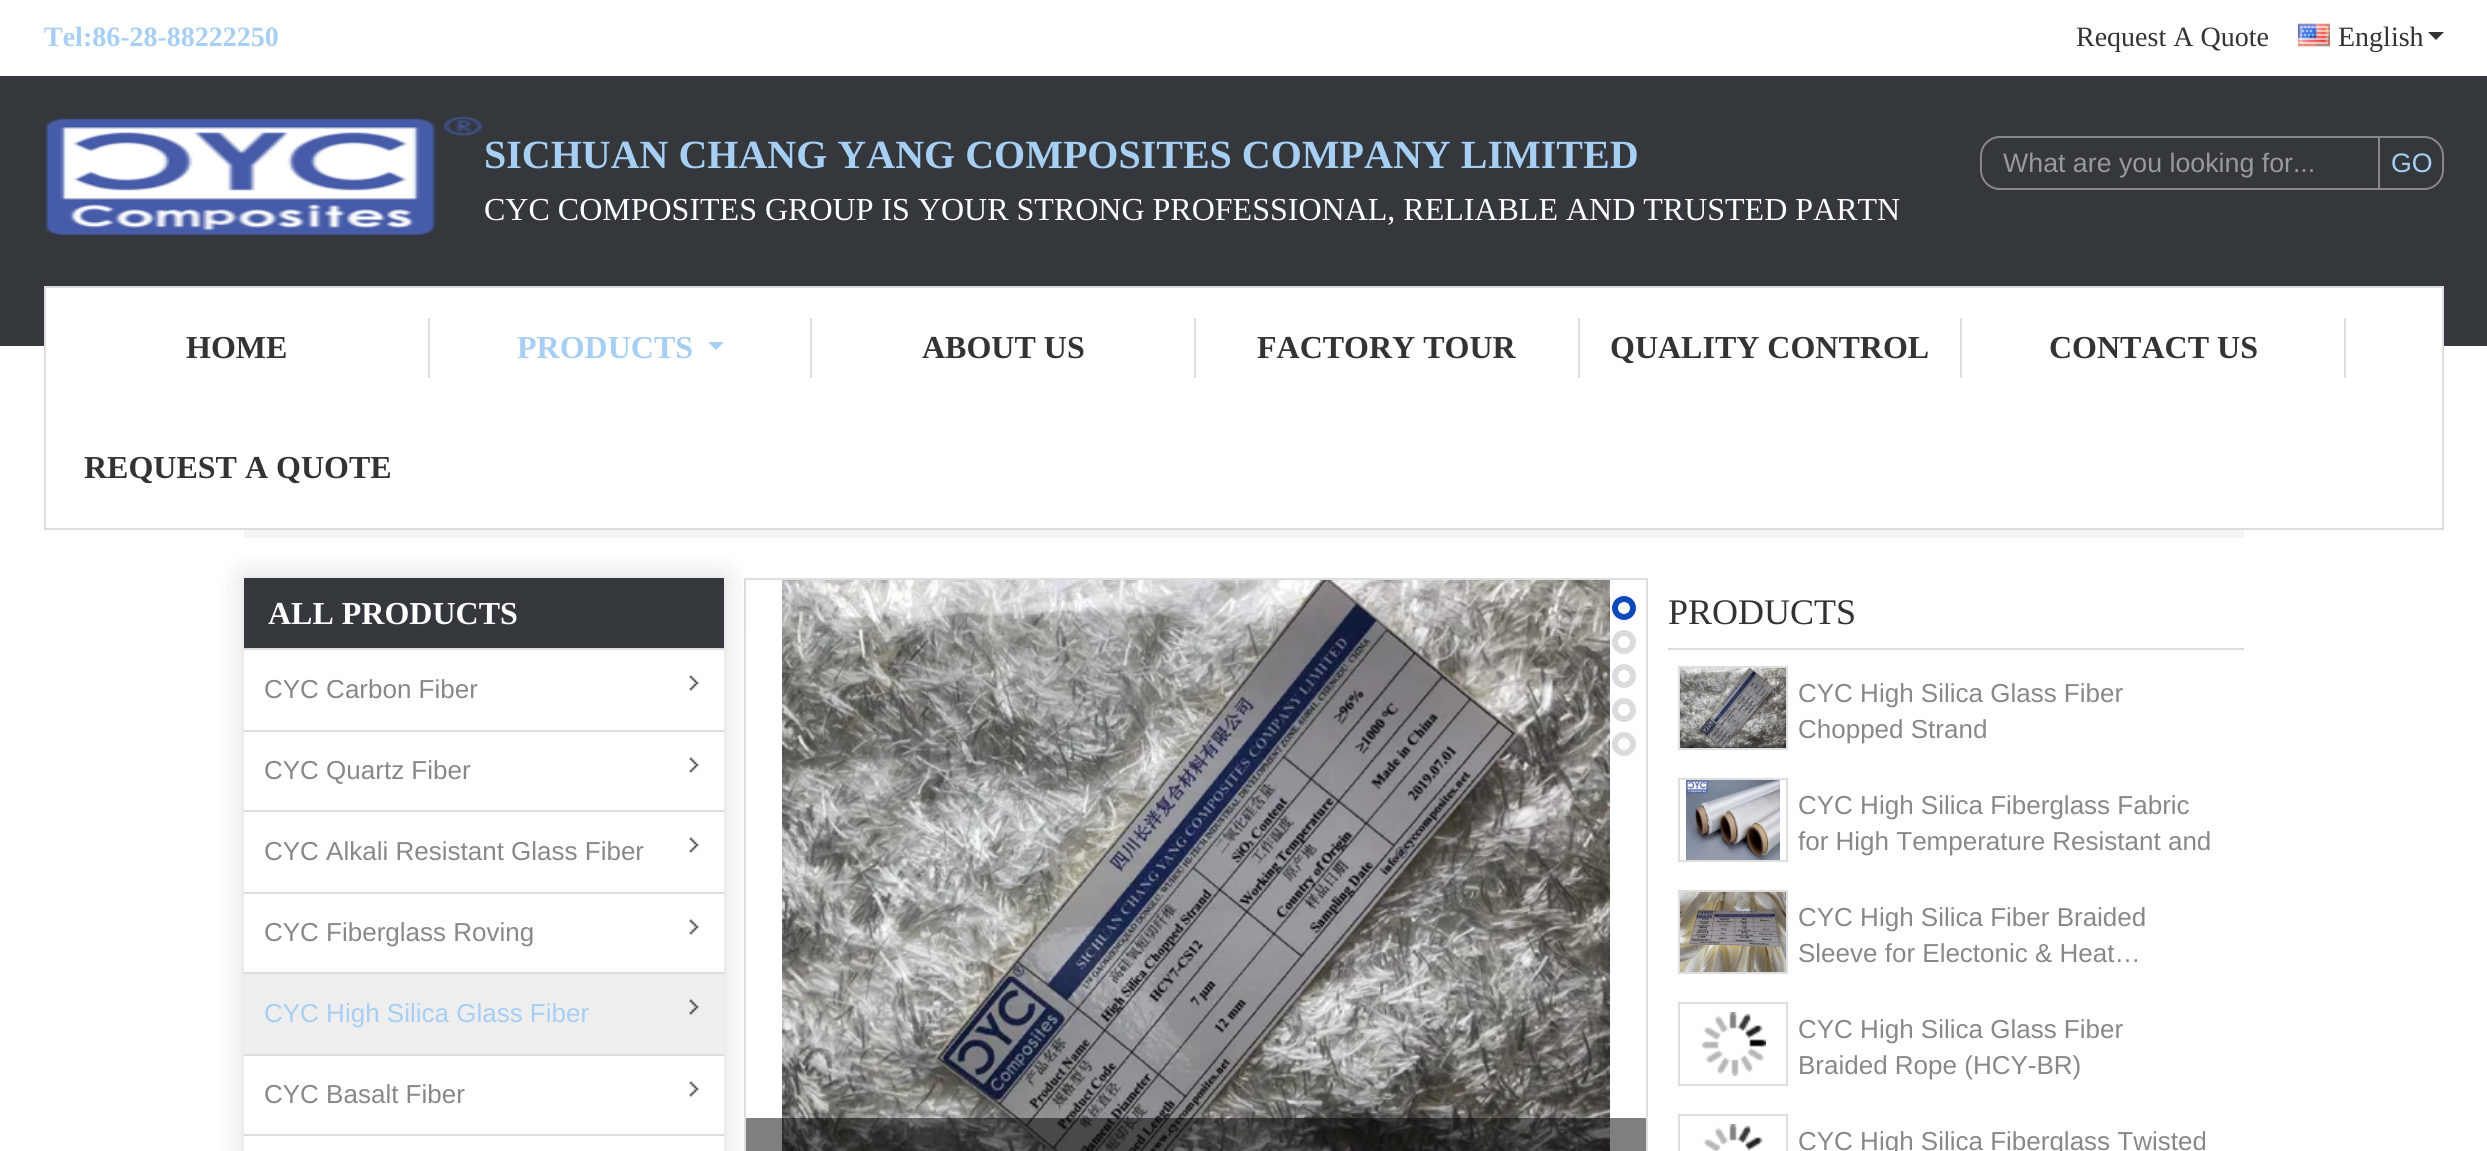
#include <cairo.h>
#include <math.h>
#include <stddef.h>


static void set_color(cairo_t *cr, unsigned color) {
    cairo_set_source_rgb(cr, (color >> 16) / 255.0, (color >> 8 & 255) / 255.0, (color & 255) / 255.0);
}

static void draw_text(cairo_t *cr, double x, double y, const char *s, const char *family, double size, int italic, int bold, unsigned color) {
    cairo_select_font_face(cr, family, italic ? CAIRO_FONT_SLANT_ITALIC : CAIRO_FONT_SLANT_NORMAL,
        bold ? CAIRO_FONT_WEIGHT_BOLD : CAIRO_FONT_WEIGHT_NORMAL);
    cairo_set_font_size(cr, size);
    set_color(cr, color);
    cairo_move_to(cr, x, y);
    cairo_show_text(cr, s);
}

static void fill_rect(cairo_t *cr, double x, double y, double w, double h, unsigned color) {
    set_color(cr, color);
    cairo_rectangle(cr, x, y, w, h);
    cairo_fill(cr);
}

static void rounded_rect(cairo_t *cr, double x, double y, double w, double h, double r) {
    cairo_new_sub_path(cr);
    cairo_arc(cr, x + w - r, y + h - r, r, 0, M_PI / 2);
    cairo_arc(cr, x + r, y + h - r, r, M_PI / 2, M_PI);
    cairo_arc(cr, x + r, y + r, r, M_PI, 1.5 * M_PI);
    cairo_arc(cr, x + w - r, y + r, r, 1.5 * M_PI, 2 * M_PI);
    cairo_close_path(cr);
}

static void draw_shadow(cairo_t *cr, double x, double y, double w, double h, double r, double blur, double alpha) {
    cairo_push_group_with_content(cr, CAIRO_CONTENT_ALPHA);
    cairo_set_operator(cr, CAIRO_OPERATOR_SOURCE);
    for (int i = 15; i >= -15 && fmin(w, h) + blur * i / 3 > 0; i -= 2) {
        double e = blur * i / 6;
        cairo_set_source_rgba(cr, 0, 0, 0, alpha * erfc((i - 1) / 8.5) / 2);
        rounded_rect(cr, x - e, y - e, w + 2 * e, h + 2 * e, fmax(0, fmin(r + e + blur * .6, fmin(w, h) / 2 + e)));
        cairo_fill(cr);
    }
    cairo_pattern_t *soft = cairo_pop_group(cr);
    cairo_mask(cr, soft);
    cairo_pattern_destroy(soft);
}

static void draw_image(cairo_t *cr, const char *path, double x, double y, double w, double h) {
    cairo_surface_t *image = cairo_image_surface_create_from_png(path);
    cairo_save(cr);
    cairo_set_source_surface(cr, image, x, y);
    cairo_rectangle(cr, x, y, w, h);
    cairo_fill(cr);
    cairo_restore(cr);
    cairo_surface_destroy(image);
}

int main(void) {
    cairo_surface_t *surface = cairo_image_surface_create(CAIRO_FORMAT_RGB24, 2487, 1151);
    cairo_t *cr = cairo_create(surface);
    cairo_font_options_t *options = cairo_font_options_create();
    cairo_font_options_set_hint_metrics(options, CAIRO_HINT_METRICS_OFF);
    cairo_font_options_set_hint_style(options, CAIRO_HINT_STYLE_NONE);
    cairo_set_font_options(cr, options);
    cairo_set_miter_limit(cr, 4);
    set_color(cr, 0xFFFFFF);
    cairo_paint(cr);
    draw_text(cr, 44, 46, "Tel:86-28-88222250", "Liberation Serif", 28, 0, 1, 0xA7CEF3);
    draw_text(cr, 2076, 46, "Request A Quote", "Liberation Serif", 28, 0, 0, 0x333333);
    draw_image(cr, "assets/img1.png", 2298, 23, 32, 24);
    draw_text(cr, 2338, 46, "English", "Liberation Serif", 28, 0, 0, 0x333333);
    cairo_new_path(cr);
    cairo_move_to(cr, 2428, 32);
    cairo_line_to(cr, 2444, 32);
    cairo_line_to(cr, 2436, 40);
    cairo_close_path(cr);
    cairo_fill(cr);
    fill_rect(cr, 0, 76, 2487, 270, 0x34373C);
    draw_image(cr, "assets/img2.png", 44, 116, 439, 120);
    draw_text(cr, 484, 168, "SICHUAN CHANG YANG COMPOSITES COMPANY LIMITED", "Liberation Serif", 40, 0, 1, 0xA7CEF3);
    draw_text(cr, 484, 220, "CYC COMPOSITES GROUP IS YOUR STRONG PROFESSIONAL, RELIABLE AND TRUSTED PARTN", "Liberation Serif", 32, 0, 0, 0xFFFFFF);
    cairo_new_path(cr);
    cairo_move_to(cr, 2000, 137);
    cairo_line_to(cr, 2379, 137);
    cairo_line_to(cr, 2379, 189);
    cairo_line_to(cr, 2000, 189);
    cairo_curve_to(cr, 1989.5, 189, 1981, 180.5, 1981, 170);
    cairo_line_to(cr, 1981, 156);
    cairo_curve_to(cr, 1981, 145.5, 1989.5, 137, 2000, 137);
    cairo_close_path(cr);
    set_color(cr, 0x888888);
    cairo_stroke(cr);
    draw_text(cr, 2003, 172, "What are you looking for...", "Liberation Sans", 26.75, 0, 0, 0x999999);
    set_color(cr, 0x888888);
    cairo_set_fill_rule(cr, CAIRO_FILL_RULE_EVEN_ODD);
    cairo_new_path(cr);
    cairo_move_to(cr, 2380, 136);
    cairo_line_to(cr, 2424, 136);
    cairo_curve_to(cr, 2435, 136, 2444, 145, 2444, 156);
    cairo_line_to(cr, 2444, 170);
    cairo_curve_to(cr, 2444, 181, 2435, 190, 2424, 190);
    cairo_line_to(cr, 2380, 190);
    cairo_close_path(cr);
    cairo_move_to(cr, 2380, 138);
    cairo_line_to(cr, 2424, 138);
    cairo_curve_to(cr, 2434, 138, 2442, 146, 2442, 156);
    cairo_line_to(cr, 2442, 170);
    cairo_curve_to(cr, 2442, 180, 2434, 188, 2424, 188);
    cairo_line_to(cr, 2380, 188);
    cairo_close_path(cr);
    cairo_fill(cr);
    draw_text(cr, 2391, 172, "GO", "Liberation Sans", 26.75, 0, 0, 0xA7CEF3);
    fill_rect(cr, 46, 288, 2396, 58, 0xFFFFFF);
    cairo_rectangle(cr, 45, 287, 2398, 242);
    set_color(cr, 0xDDDDDD);
    cairo_stroke(cr);
    fill_rect(cr, 428, 318, 2, 60, 0xDDDDDD);
    draw_text(cr, 186, 358, "HOME", "Liberation Serif", 32, 0, 1, 0x333333);
    fill_rect(cr, 810, 318, 2, 60, 0xDDDDDD);
    draw_text(cr, 517, 358, "PRODUCTS", "Liberation Serif", 32, 0, 1, 0xA7CEF3);
    cairo_set_fill_rule(cr, CAIRO_FILL_RULE_WINDING);
    cairo_new_path(cr);
    cairo_move_to(cr, 708, 342);
    cairo_line_to(cr, 724, 342);
    cairo_line_to(cr, 716, 350);
    cairo_close_path(cr);
    cairo_fill(cr);
    fill_rect(cr, 1194, 318, 2, 60, 0xDDDDDD);
    draw_text(cr, 922, 358, "ABOUT US", "Liberation Serif", 32, 0, 1, 0x333333);
    fill_rect(cr, 1578, 318, 2, 60, 0xDDDDDD);
    draw_text(cr, 1257, 358, "FACTORY TOUR", "Liberation Serif", 32, 0, 1, 0x333333);
    fill_rect(cr, 1960, 318, 2, 60, 0xDDDDDD);
    draw_text(cr, 1610, 358, "QUALITY CONTROL", "Liberation Serif", 32, 0, 1, 0x333333);
    fill_rect(cr, 2344, 318, 2, 60, 0xDDDDDD);
    draw_text(cr, 2049, 358, "CONTACT US", "Liberation Serif", 32, 0, 1, 0x333333);
    draw_text(cr, 84, 478, "REQUEST A QUOTE", "Liberation Serif", 32, 0, 1, 0x333333);
    cairo_save(cr);
    cairo_set_fill_rule(cr, CAIRO_FILL_RULE_EVEN_ODD);
    cairo_new_path(cr);
    cairo_move_to(cr, 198, 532);
    cairo_line_to(cr, 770, 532);
    cairo_line_to(cr, 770, 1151);
    cairo_line_to(cr, 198, 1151);
    cairo_close_path(cr);
    cairo_move_to(cr, 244, 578);
    cairo_line_to(cr, 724, 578);
    cairo_line_to(cr, 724, 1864);
    cairo_line_to(cr, 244, 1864);
    cairo_close_path(cr);
    cairo_clip(cr);
    set_color(cr, 0x000000);
    draw_shadow(cr, 244, 578, 480, 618, 0, 15, 0.15);
    cairo_restore(cr);
    fill_rect(cr, 244, 530, 2000, 8, 0xF5F5F5);
    fill_rect(cr, 244, 578, 480, 70, 0x34373C);
    draw_text(cr, 268, 624, "ALL PRODUCTS", "Liberation Serif", 32, 0, 1, 0xFFFFFF);
    fill_rect(cr, 244, 648, 480, 2, 0xDDDDDD);
    draw_text(cr, 264, 698, "CYC Carbon Fiber", "Liberation Sans", 26, 0, 0, 0x888888);
    draw_image(cr, "assets/img3.png", 689, 675, 10, 16);
    fill_rect(cr, 244, 730, 480, 2, 0xDDDDDD);
    draw_text(cr, 264, 779, "CYC Quartz Fiber", "Liberation Sans", 26, 0, 0, 0x888888);
    draw_image(cr, "assets/img3.png", 689, 757, 10, 16);
    fill_rect(cr, 244, 810, 480, 2, 0xDDDDDD);
    draw_text(cr, 264, 860, "CYC Alkali Resistant Glass Fiber", "Liberation Sans", 26, 0, 0, 0x888888);
    draw_image(cr, "assets/img3.png", 689, 837, 10, 16);
    fill_rect(cr, 244, 892, 480, 2, 0xDDDDDD);
    draw_text(cr, 264, 941, "CYC Fiberglass Roving", "Liberation Sans", 26, 0, 0, 0x888888);
    draw_image(cr, "assets/img3.png", 689, 919, 10, 16);
    fill_rect(cr, 244, 974, 480, 80, 0xEEEEEE);
    fill_rect(cr, 244, 972, 480, 2, 0xDDDDDD);
    draw_text(cr, 264, 1022, "CYC High Silica Glass Fiber", "Liberation Sans", 26, 0, 0, 0xA7CEF3);
    draw_image(cr, "assets/img4.png", 689, 999, 10, 16);
    fill_rect(cr, 244, 1054, 480, 2, 0xDDDDDD);
    draw_text(cr, 264, 1103, "CYC Basalt Fiber", "Liberation Sans", 26, 0, 0, 0x888888);
    draw_image(cr, "assets/img3.png", 689, 1081, 10, 16);
    fill_rect(cr, 244, 1134, 480, 2, 0xDDDDDD);
    fill_rect(cr, 746, 633, 1, 518, 0xFFFFFF);
    cairo_rectangle(cr, 745, 579, 902, 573);
    set_color(cr, 0xDEDEDE);
    cairo_stroke(cr);
    draw_image(cr, "assets/img5.png", 782, 580, 828, 571);
    cairo_set_source_rgba(cr, 0, 0, 0, 0.5);
    cairo_rectangle(cr, 746, 1118, 900, 33);
    cairo_fill(cr);
    cairo_arc(cr, 1624, 608, 9, 0, 2 * M_PI);
    set_color(cr, 0x0E49BB);
    cairo_set_line_width(cr, 6);
    cairo_stroke(cr);
    cairo_arc(cr, 1624, 642, 9, 0, 2 * M_PI);
    set_color(cr, 0xDBDBDB);
    cairo_stroke(cr);
    cairo_arc(cr, 1624, 676, 9, 0, 2 * M_PI);
    cairo_stroke(cr);
    cairo_arc(cr, 1624, 710, 9, 0, 2 * M_PI);
    cairo_stroke(cr);
    cairo_arc(cr, 1624, 744, 9, 0, 2 * M_PI);
    cairo_stroke(cr);
    fill_rect(cr, 1668, 648, 576, 2, 0xDDDDDD);
    draw_text(cr, 1668, 624, "PRODUCTS", "Liberation Serif", 36, 0, 0, 0x333333);
    cairo_rectangle(cr, 1679, 667, 108, 82);
    set_color(cr, 0xDEDEDE);
    cairo_set_line_width(cr, 2);
    cairo_stroke(cr);
    draw_image(cr, "assets/img6.png", 1680, 668, 106, 80);
    draw_text(cr, 1798, 702, "CYC High Silica Glass Fiber", "Liberation Sans", 26, 0, 0, 0x888888);
    draw_text(cr, 1798, 738, "Chopped Strand", "Liberation Sans", 26, 0, 0, 0x888888);
    cairo_rectangle(cr, 1679, 779, 108, 82);
    set_color(cr, 0xDEDEDE);
    cairo_stroke(cr);
    draw_image(cr, "assets/img7.png", 1686, 780, 94, 80);
    draw_text(cr, 1798, 814, "CYC High Silica Fiberglass Fabric", "Liberation Sans", 26, 0, 0, 0x888888);
    draw_text(cr, 1798, 850, "for High Temperature Resistant and", "Liberation Sans", 26, 0, 0, 0x888888);
    cairo_rectangle(cr, 1679, 891, 108, 82);
    set_color(cr, 0xDEDEDE);
    cairo_stroke(cr);
    draw_image(cr, "assets/img8.png", 1680, 892, 106, 80);
    draw_text(cr, 1798, 926, "CYC High Silica Fiber Braided", "Liberation Sans", 26, 0, 0, 0x888888);
    draw_text(cr, 1798, 962, "Sleeve for Electonic & Heat…", "Liberation Sans", 26, 0, 0, 0x888888);
    cairo_rectangle(cr, 1679, 1003, 108, 82);
    set_color(cr, 0xDEDEDE);
    cairo_stroke(cr);
    draw_image(cr, "assets/img9.png", 1702, 1012, 64, 64);
    draw_text(cr, 1798, 1038, "CYC High Silica Glass Fiber", "Liberation Sans", 26, 0, 0, 0x888888);
    draw_text(cr, 1798, 1074, "Braided Rope (HCY-BR)", "Liberation Sans", 26, 0, 0, 0x888888);
    cairo_rectangle(cr, 1679, 1115, 108, 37);
    set_color(cr, 0xDEDEDE);
    cairo_stroke(cr);
    draw_image(cr, "assets/img10.png", 1703, 1124, 60, 27);
    draw_text(cr, 1798, 1150, "CYC High Silica Fiberglass Twisted", "Liberation Sans", 26, 0, 0, 0x888888);
    cairo_surface_write_to_png(surface, "output.png");
    cairo_font_options_destroy(options);
    cairo_destroy(cr);
    cairo_surface_destroy(surface);
    return 0;
}
